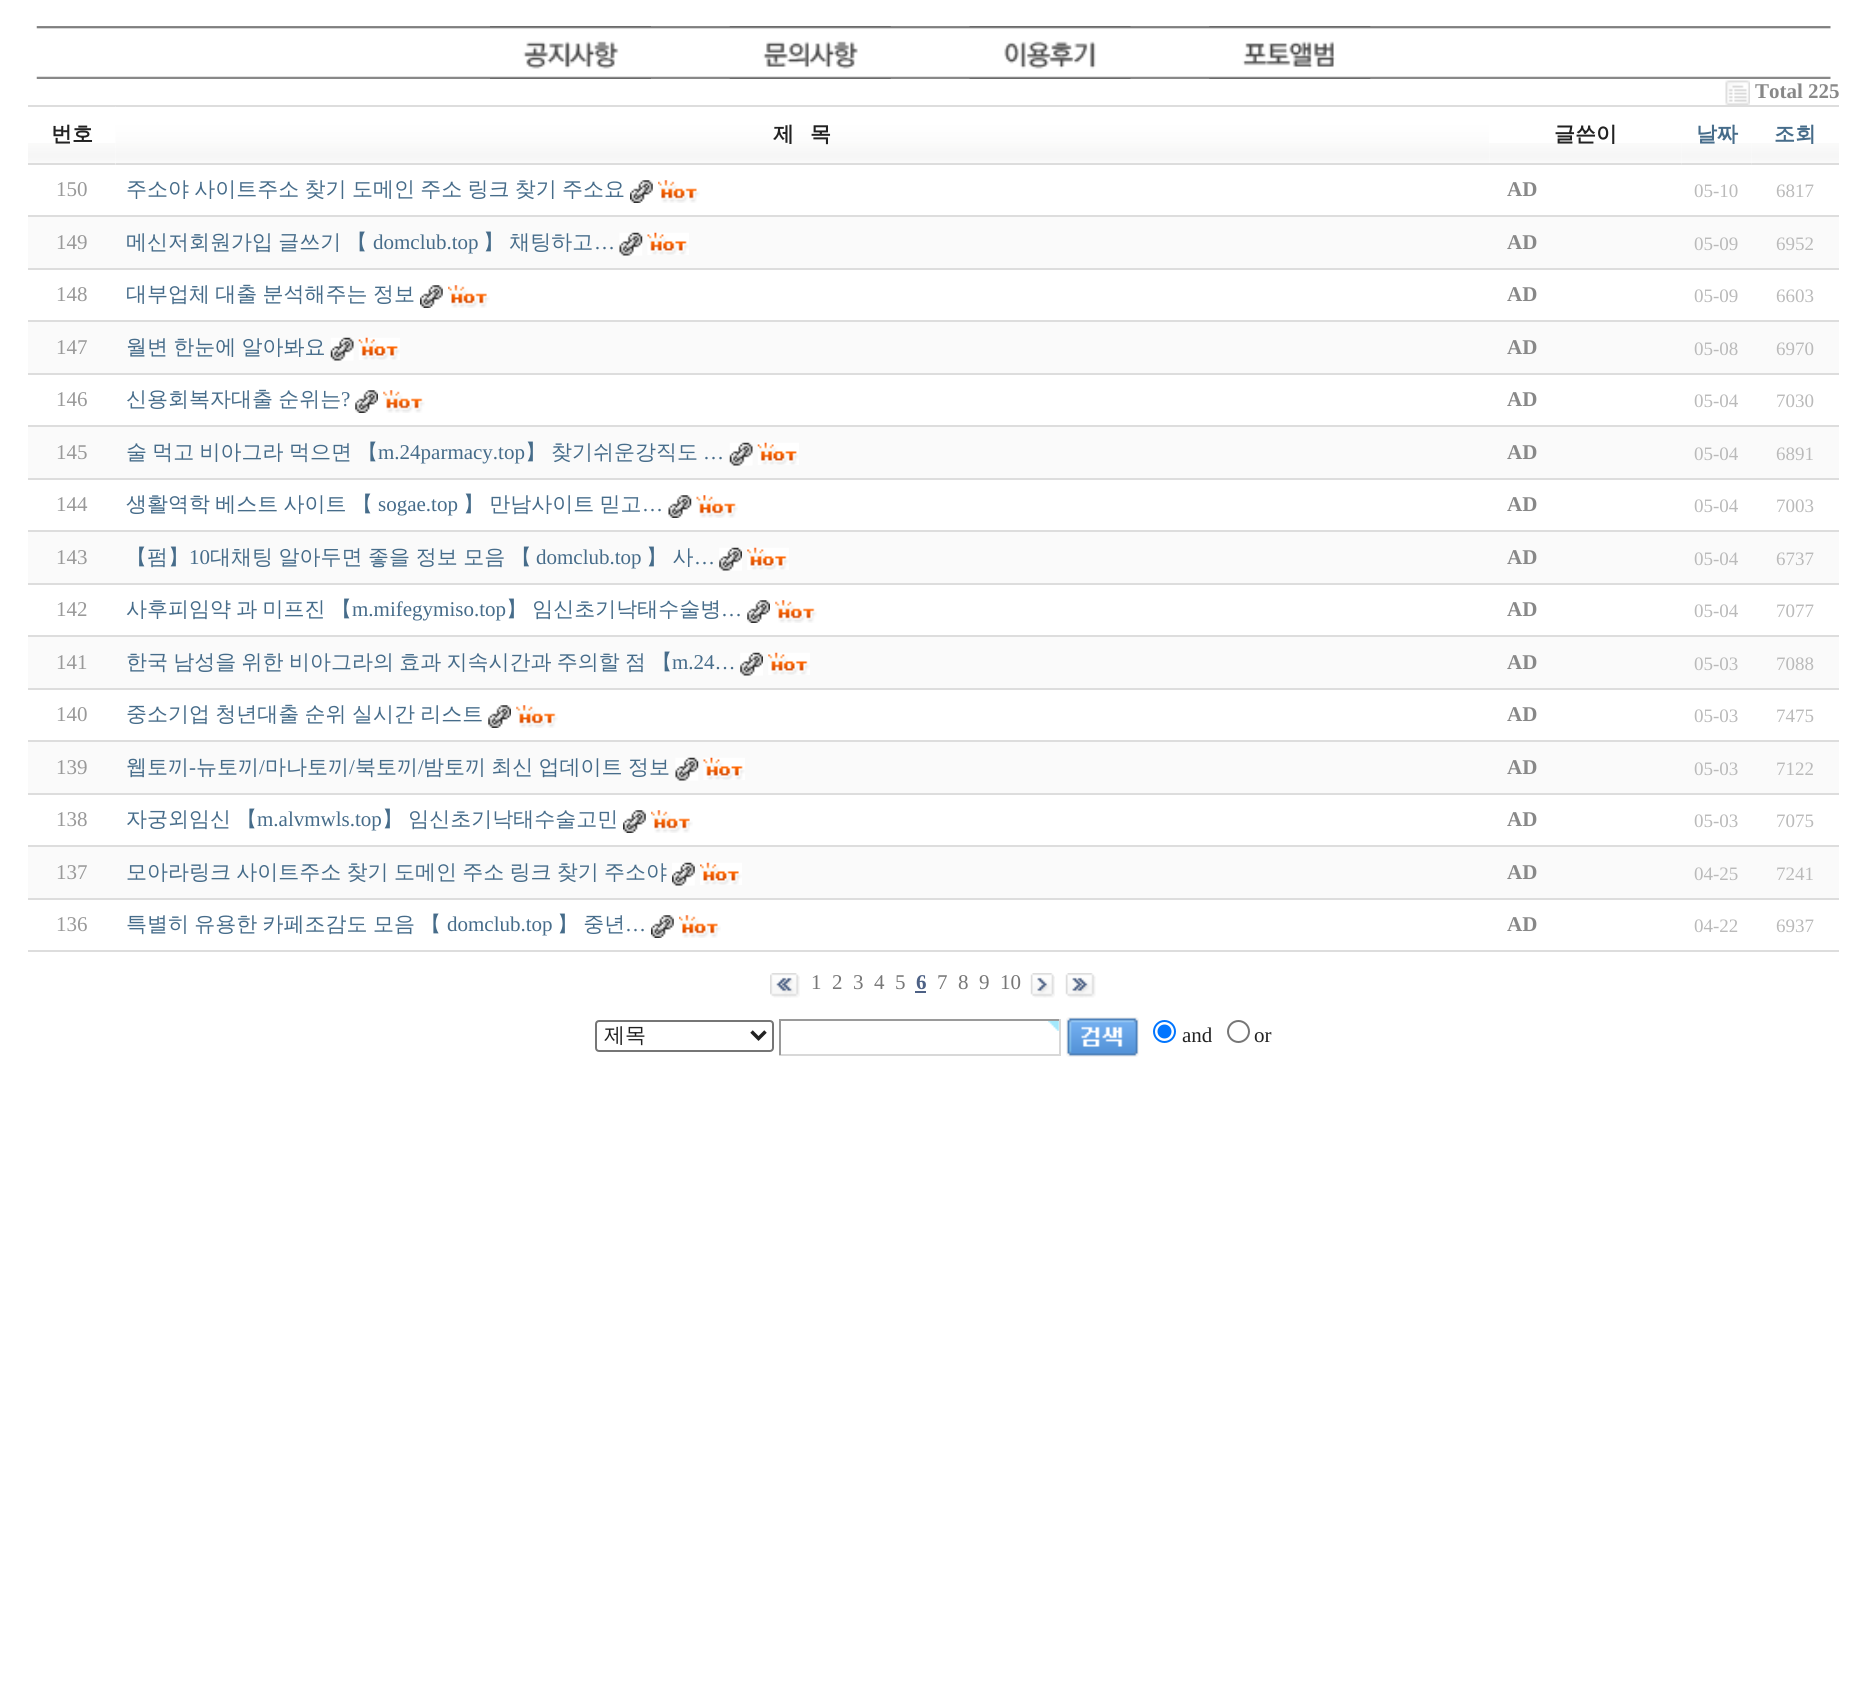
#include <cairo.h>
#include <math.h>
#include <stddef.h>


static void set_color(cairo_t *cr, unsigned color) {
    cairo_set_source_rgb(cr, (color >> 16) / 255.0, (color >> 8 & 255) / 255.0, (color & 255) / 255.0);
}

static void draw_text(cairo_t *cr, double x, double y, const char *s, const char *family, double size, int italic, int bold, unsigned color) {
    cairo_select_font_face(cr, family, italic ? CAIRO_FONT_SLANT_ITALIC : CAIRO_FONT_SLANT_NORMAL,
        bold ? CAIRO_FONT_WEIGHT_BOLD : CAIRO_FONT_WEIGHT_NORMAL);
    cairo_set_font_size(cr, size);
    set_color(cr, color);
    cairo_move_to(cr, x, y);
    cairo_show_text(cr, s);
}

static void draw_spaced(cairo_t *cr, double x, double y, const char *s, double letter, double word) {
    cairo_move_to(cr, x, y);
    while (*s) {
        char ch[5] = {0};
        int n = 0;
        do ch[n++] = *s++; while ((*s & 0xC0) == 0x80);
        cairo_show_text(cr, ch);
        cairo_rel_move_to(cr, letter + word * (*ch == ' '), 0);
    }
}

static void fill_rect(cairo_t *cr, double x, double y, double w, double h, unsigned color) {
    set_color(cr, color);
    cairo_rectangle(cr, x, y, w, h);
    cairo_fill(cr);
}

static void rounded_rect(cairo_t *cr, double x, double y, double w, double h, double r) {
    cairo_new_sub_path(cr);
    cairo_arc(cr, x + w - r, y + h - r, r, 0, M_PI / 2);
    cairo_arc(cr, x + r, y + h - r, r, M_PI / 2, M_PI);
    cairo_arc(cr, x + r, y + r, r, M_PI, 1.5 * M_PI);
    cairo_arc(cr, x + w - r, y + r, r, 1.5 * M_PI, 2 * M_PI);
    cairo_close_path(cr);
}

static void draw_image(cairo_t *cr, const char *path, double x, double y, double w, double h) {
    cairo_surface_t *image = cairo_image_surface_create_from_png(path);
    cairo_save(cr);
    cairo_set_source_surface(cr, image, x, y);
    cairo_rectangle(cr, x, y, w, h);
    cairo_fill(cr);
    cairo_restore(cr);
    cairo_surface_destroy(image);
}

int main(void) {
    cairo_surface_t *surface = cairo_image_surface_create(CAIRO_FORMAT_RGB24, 1866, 1681);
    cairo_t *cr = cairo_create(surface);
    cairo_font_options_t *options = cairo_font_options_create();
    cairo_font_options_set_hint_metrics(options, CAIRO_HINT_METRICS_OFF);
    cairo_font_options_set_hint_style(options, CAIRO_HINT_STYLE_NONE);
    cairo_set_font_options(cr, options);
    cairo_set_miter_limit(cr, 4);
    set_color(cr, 0xFFFFFF);
    cairo_paint(cr);
    draw_image(cr, "assets/img1.png", 36, 26, 1795, 53);
    draw_image(cr, "assets/img2.png", 490, 26, 161, 53);
    draw_image(cr, "assets/img3.png", 729, 26, 162, 53);
    draw_image(cr, "assets/img4.png", 969, 26, 162, 53);
    draw_image(cr, "assets/img5.png", 1209, 26, 162, 53);
    draw_image(cr, "assets/img6.png", 1725, 80, 25, 25);
    draw_text(cr, 1755, 98, "Total 225", "Liberation Serif", 21, 0, 1, 0x888888);
    draw_image(cr, "assets/img7.png", 28, 143, 88, 20);
    fill_rect(cr, 28, 105, 88, 2, 0xDDDDDD);
    fill_rect(cr, 28, 163, 88, 2, 0xDDDDDD);
    draw_text(cr, 51, 141, "번호", "WenQuanYi Zen Hei", 21, 0, 1, 0x222222);
    draw_image(cr, "assets/img8.png", 115, 106, 1374, 59);
    fill_rect(cr, 116, 105, 1723, 2, 0xDDDDDD);
    fill_rect(cr, 116, 163, 1566, 2, 0xDDDDDD);
    draw_text(cr, 773, 141, "제", "WenQuanYi Zen Hei", 21, 0, 1, 0x222222);
    draw_text(cr, 810, 141, "목", "WenQuanYi Zen Hei", 21, 0, 1, 0x222222);
    draw_image(cr, "assets/img9.png", 1489, 143, 193, 20);
    draw_text(cr, 1554, 141, "글쓴이", "WenQuanYi Zen Hei", 21, 0, 1, 0x222222);
    draw_image(cr, "assets/img10.png", 1681, 143, 71, 22);
    fill_rect(cr, 1682, 163, 70, 2, 0xDDDDDD);
    draw_text(cr, 1696, 141, "날짜", "WenQuanYi Zen Hei", 21, 0, 1, 0x466C8A);
    draw_image(cr, "assets/img11.png", 1751, 143, 88, 22);
    fill_rect(cr, 1752, 163, 87, 2, 0xDDDDDD);
    draw_text(cr, 1774, 141, "조회", "WenQuanYi Zen Hei", 21, 0, 1, 0x466C8A);
    fill_rect(cr, 28, 215, 88, 2, 0xDDDDDD);
    draw_text(cr, 56, 196, "150", "Liberation Serif", 21, 0, 0, 0x999999);
    cairo_select_font_face(cr, "WenQuanYi Zen Hei Medium", CAIRO_FONT_SLANT_NORMAL, CAIRO_FONT_WEIGHT_NORMAL);
    set_color(cr, 0x466C8A);
    draw_spaced(cr, 126, 196, "주소야 사이트주소 찾기 도메인 주소 링크 찾기 주소요", 0, -1);
    draw_image(cr, "assets/img12.png", 630, 180, 23, 23);
    draw_image(cr, "assets/img13.png", 658, 180, 42, 23);
    fill_rect(cr, 116, 215, 1723, 2, 0xDDDDDD);
    draw_text(cr, 1507, 196, "AD", "Liberation Serif", 21, 0, 1, 0x888888);
    draw_text(cr, 1694, 197, "05-10", "Liberation Serif", 19, 0, 0, 0xBABABA);
    draw_text(cr, 1776, 197, "6817", "Liberation Serif", 19, 0, 0, 0xBABABA);
    fill_rect(cr, 28, 217, 1811, 51, 0xFAFAFA);
    fill_rect(cr, 28, 268, 88, 2, 0xDDDDDD);
    draw_text(cr, 56, 249, "149", "Liberation Serif", 21, 0, 0, 0x999999);
    cairo_select_font_face(cr, "WenQuanYi Zen Hei Medium", CAIRO_FONT_SLANT_NORMAL, CAIRO_FONT_WEIGHT_NORMAL);
    set_color(cr, 0x466C8A);
    draw_spaced(cr, 126, 249, "메신저회원가입 글쓰기 【", 0, -1);
    draw_text(cr, 373, 249, "domclub.top", "Liberation Serif", 21, 0, 0, 0x466C8A);
    cairo_select_font_face(cr, "WenQuanYi Zen Hei Medium", CAIRO_FONT_SLANT_NORMAL, CAIRO_FONT_WEIGHT_NORMAL);
    draw_spaced(cr, 483, 249, "】 채팅하고", 0, -1);
    draw_text(cr, 594, 249, "…", "Liberation Serif", 21, 0, 0, 0x466C8A);
    draw_image(cr, "assets/img14.png", 619, 232, 24, 24);
    draw_image(cr, "assets/img15.png", 647, 232, 42, 23);
    fill_rect(cr, 116, 268, 1723, 2, 0xDDDDDD);
    draw_text(cr, 1507, 249, "AD", "Liberation Serif", 21, 0, 1, 0x888888);
    draw_text(cr, 1694, 250, "05-09", "Liberation Serif", 19, 0, 0, 0xBABABA);
    draw_text(cr, 1776, 250, "6952", "Liberation Serif", 19, 0, 0, 0xBABABA);
    fill_rect(cr, 28, 320, 88, 2, 0xDDDDDD);
    draw_text(cr, 56, 301, "148", "Liberation Serif", 21, 0, 0, 0x999999);
    cairo_select_font_face(cr, "WenQuanYi Zen Hei Medium", CAIRO_FONT_SLANT_NORMAL, CAIRO_FONT_WEIGHT_NORMAL);
    set_color(cr, 0x466C8A);
    draw_spaced(cr, 126, 301, "대부업체 대출 분석해주는 정보", 0, -1);
    draw_image(cr, "assets/img12.png", 420, 285, 23, 23);
    draw_image(cr, "assets/img16.png", 448, 285, 42, 23);
    fill_rect(cr, 116, 320, 1723, 2, 0xDDDDDD);
    draw_text(cr, 1507, 301, "AD", "Liberation Serif", 21, 0, 1, 0x888888);
    draw_text(cr, 1694, 302, "05-09", "Liberation Serif", 19, 0, 0, 0xBABABA);
    draw_text(cr, 1776, 302, "6603", "Liberation Serif", 19, 0, 0, 0xBABABA);
    fill_rect(cr, 28, 322, 1811, 51, 0xFAFAFA);
    fill_rect(cr, 28, 373, 88, 2, 0xDDDDDD);
    draw_text(cr, 56, 354, "147", "Liberation Serif", 21, 0, 0, 0x999999);
    cairo_select_font_face(cr, "WenQuanYi Zen Hei Medium", CAIRO_FONT_SLANT_NORMAL, CAIRO_FONT_WEIGHT_NORMAL);
    set_color(cr, 0x466C8A);
    draw_spaced(cr, 126, 354, "월변 한눈에 알아봐요", 0, -1);
    draw_image(cr, "assets/img17.png", 330, 337, 24, 24);
    draw_image(cr, "assets/img18.png", 358, 337, 42, 23);
    fill_rect(cr, 116, 373, 1723, 2, 0xDDDDDD);
    draw_text(cr, 1507, 354, "AD", "Liberation Serif", 21, 0, 1, 0x888888);
    draw_text(cr, 1694, 355, "05-08", "Liberation Serif", 19, 0, 0, 0xBABABA);
    draw_text(cr, 1776, 355, "6970", "Liberation Serif", 19, 0, 0, 0xBABABA);
    fill_rect(cr, 28, 425, 88, 2, 0xDDDDDD);
    draw_text(cr, 56, 406, "146", "Liberation Serif", 21, 0, 0, 0x999999);
    cairo_select_font_face(cr, "WenQuanYi Zen Hei Medium", CAIRO_FONT_SLANT_NORMAL, CAIRO_FONT_WEIGHT_NORMAL);
    set_color(cr, 0x466C8A);
    draw_spaced(cr, 126, 406, "신용회복자대출 순위는", 0, -1);
    draw_text(cr, 341, 406, "?", "Liberation Serif", 21, 0, 0, 0x466C8A);
    draw_image(cr, "assets/img19.png", 355, 390, 23, 23);
    draw_image(cr, "assets/img20.png", 383, 390, 42, 23);
    fill_rect(cr, 116, 425, 1723, 2, 0xDDDDDD);
    draw_text(cr, 1507, 406, "AD", "Liberation Serif", 21, 0, 1, 0x888888);
    draw_text(cr, 1694, 407, "05-04", "Liberation Serif", 19, 0, 0, 0xBABABA);
    draw_text(cr, 1776, 407, "7030", "Liberation Serif", 19, 0, 0, 0xBABABA);
    fill_rect(cr, 28, 427, 1811, 51, 0xFAFAFA);
    fill_rect(cr, 28, 478, 88, 2, 0xDDDDDD);
    draw_text(cr, 56, 459, "145", "Liberation Serif", 21, 0, 0, 0x999999);
    cairo_select_font_face(cr, "WenQuanYi Zen Hei Medium", CAIRO_FONT_SLANT_NORMAL, CAIRO_FONT_WEIGHT_NORMAL);
    set_color(cr, 0x466C8A);
    draw_spaced(cr, 126, 459, "술 먹고 비아그라 먹으면 【", 0, -1);
    draw_text(cr, 378, 459, "m.24parmacy.top", "Liberation Serif", 21, 0, 0, 0x466C8A);
    draw_text(cr, 525, 459, "】", "WenQuanYi Zen Hei Medium", 21, 0, 0, 0x466C8A);
    draw_text(cr, 551, 459, "찾기쉬운강직도", "WenQuanYi Zen Hei Medium", 21, 0, 0, 0x466C8A);
    draw_text(cr, 703, 459, "…", "Liberation Serif", 21, 0, 0, 0x466C8A);
    draw_image(cr, "assets/img21.png", 729, 442, 24, 24);
    draw_image(cr, "assets/img22.png", 757, 442, 42, 23);
    fill_rect(cr, 116, 478, 1723, 2, 0xDDDDDD);
    draw_text(cr, 1507, 459, "AD", "Liberation Serif", 21, 0, 1, 0x888888);
    draw_text(cr, 1694, 460, "05-04", "Liberation Serif", 19, 0, 0, 0xBABABA);
    draw_text(cr, 1776, 460, "6891", "Liberation Serif", 19, 0, 0, 0xBABABA);
    fill_rect(cr, 28, 530, 88, 2, 0xDDDDDD);
    draw_text(cr, 56, 511, "144", "Liberation Serif", 21, 0, 0, 0x999999);
    cairo_select_font_face(cr, "WenQuanYi Zen Hei Medium", CAIRO_FONT_SLANT_NORMAL, CAIRO_FONT_WEIGHT_NORMAL);
    set_color(cr, 0x466C8A);
    draw_spaced(cr, 126, 511, "생활역학 베스트 사이트 【", 0, -1);
    draw_text(cr, 378, 511, "sogae.top", "Liberation Serif", 21, 0, 0, 0x466C8A);
    cairo_select_font_face(cr, "WenQuanYi Zen Hei Medium", CAIRO_FONT_SLANT_NORMAL, CAIRO_FONT_WEIGHT_NORMAL);
    draw_spaced(cr, 463, 511, "】 만남사이트 믿고", 0, -1);
    draw_text(cr, 642, 511, "…", "Liberation Serif", 21, 0, 0, 0x466C8A);
    draw_image(cr, "assets/img23.png", 668, 495, 24, 23);
    draw_image(cr, "assets/img24.png", 696, 495, 42, 23);
    fill_rect(cr, 116, 530, 1723, 2, 0xDDDDDD);
    draw_text(cr, 1507, 511, "AD", "Liberation Serif", 21, 0, 1, 0x888888);
    draw_text(cr, 1694, 512, "05-04", "Liberation Serif", 19, 0, 0, 0xBABABA);
    draw_text(cr, 1776, 512, "7003", "Liberation Serif", 19, 0, 0, 0xBABABA);
    fill_rect(cr, 28, 532, 1811, 51, 0xFAFAFA);
    fill_rect(cr, 28, 583, 88, 2, 0xDDDDDD);
    draw_text(cr, 56, 564, "143", "Liberation Serif", 21, 0, 0, 0x999999);
    draw_text(cr, 126, 564, "【펌】", "WenQuanYi Zen Hei Medium", 21, 0, 0, 0x466C8A);
    draw_text(cr, 189, 564, "10", "Liberation Serif", 21, 0, 0, 0x466C8A);
    cairo_select_font_face(cr, "WenQuanYi Zen Hei Medium", CAIRO_FONT_SLANT_NORMAL, CAIRO_FONT_WEIGHT_NORMAL);
    draw_spaced(cr, 210, 564, "대채팅 알아두면 좋을 정보 모음 【", 0, -0.75);
    draw_text(cr, 536, 564, "domclub.top", "Liberation Serif", 21, 0, 0, 0x466C8A);
    cairo_select_font_face(cr, "WenQuanYi Zen Hei Medium", CAIRO_FONT_SLANT_NORMAL, CAIRO_FONT_WEIGHT_NORMAL);
    draw_spaced(cr, 646, 564, "】 사", 0, -0.75);
    draw_text(cr, 694, 564, "…", "Liberation Serif", 21, 0, 0, 0x466C8A);
    draw_image(cr, "assets/img25.png", 719, 547, 23, 24);
    draw_image(cr, "assets/img26.png", 747, 547, 42, 23);
    fill_rect(cr, 116, 583, 1723, 2, 0xDDDDDD);
    draw_text(cr, 1507, 564, "AD", "Liberation Serif", 21, 0, 1, 0x888888);
    draw_text(cr, 1694, 565, "05-04", "Liberation Serif", 19, 0, 0, 0xBABABA);
    draw_text(cr, 1776, 565, "6737", "Liberation Serif", 19, 0, 0, 0xBABABA);
    fill_rect(cr, 28, 635, 88, 2, 0xDDDDDD);
    draw_text(cr, 56, 616, "142", "Liberation Serif", 21, 0, 0, 0x999999);
    cairo_select_font_face(cr, "WenQuanYi Zen Hei Medium", CAIRO_FONT_SLANT_NORMAL, CAIRO_FONT_WEIGHT_NORMAL);
    set_color(cr, 0x466C8A);
    draw_spaced(cr, 126, 616, "사후피임약 과 미프진 【", 0, -1);
    draw_text(cr, 352, 616, "m.mifegymiso.top", "Liberation Serif", 21, 0, 0, 0x466C8A);
    cairo_select_font_face(cr, "WenQuanYi Zen Hei Medium", CAIRO_FONT_SLANT_NORMAL, CAIRO_FONT_WEIGHT_NORMAL);
    draw_spaced(cr, 506, 616, "】 임신초기낙태수술병", 0, -1);
    draw_text(cr, 721, 616, "…", "Liberation Serif", 21, 0, 0, 0x466C8A);
    draw_image(cr, "assets/img27.png", 747, 600, 23, 23);
    draw_image(cr, "assets/img20.png", 775, 600, 42, 23);
    fill_rect(cr, 116, 635, 1723, 2, 0xDDDDDD);
    draw_text(cr, 1507, 616, "AD", "Liberation Serif", 21, 0, 1, 0x888888);
    draw_text(cr, 1694, 617, "05-04", "Liberation Serif", 19, 0, 0, 0xBABABA);
    draw_text(cr, 1776, 617, "7077", "Liberation Serif", 19, 0, 0, 0xBABABA);
    fill_rect(cr, 28, 637, 1811, 51, 0xFAFAFA);
    fill_rect(cr, 28, 688, 88, 2, 0xDDDDDD);
    draw_text(cr, 56, 669, "141", "Liberation Serif", 21, 0, 0, 0x999999);
    cairo_select_font_face(cr, "WenQuanYi Zen Hei Medium", CAIRO_FONT_SLANT_NORMAL, CAIRO_FONT_WEIGHT_NORMAL);
    set_color(cr, 0x466C8A);
    draw_spaced(cr, 126, 669, "한국 남성을 위한 비아그라의 효과 지속시간과 주의할 점 【", 0, -1);
    draw_text(cr, 672, 669, "m.24…", "Liberation Serif", 21, 0, 0, 0x466C8A);
    draw_image(cr, "assets/img25.png", 740, 652, 23, 24);
    draw_image(cr, "assets/img28.png", 768, 652, 42, 23);
    fill_rect(cr, 116, 688, 1723, 2, 0xDDDDDD);
    draw_text(cr, 1507, 669, "AD", "Liberation Serif", 21, 0, 1, 0x888888);
    draw_text(cr, 1694, 670, "05-03", "Liberation Serif", 19, 0, 0, 0xBABABA);
    draw_text(cr, 1776, 670, "7088", "Liberation Serif", 19, 0, 0, 0xBABABA);
    fill_rect(cr, 28, 740, 88, 2, 0xDDDDDD);
    draw_text(cr, 56, 721, "140", "Liberation Serif", 21, 0, 0, 0x999999);
    cairo_select_font_face(cr, "WenQuanYi Zen Hei Medium", CAIRO_FONT_SLANT_NORMAL, CAIRO_FONT_WEIGHT_NORMAL);
    set_color(cr, 0x466C8A);
    draw_spaced(cr, 126, 721, "중소기업 청년대출 순위 실시간 리스트", 0, -1);
    draw_image(cr, "assets/img29.png", 488, 705, 23, 23);
    draw_image(cr, "assets/img20.png", 516, 705, 42, 23);
    fill_rect(cr, 116, 740, 1723, 2, 0xDDDDDD);
    draw_text(cr, 1507, 721, "AD", "Liberation Serif", 21, 0, 1, 0x888888);
    draw_text(cr, 1694, 722, "05-03", "Liberation Serif", 19, 0, 0, 0xBABABA);
    draw_text(cr, 1776, 722, "7475", "Liberation Serif", 19, 0, 0, 0xBABABA);
    fill_rect(cr, 28, 742, 1811, 51, 0xFAFAFA);
    fill_rect(cr, 28, 793, 88, 2, 0xDDDDDD);
    draw_text(cr, 56, 774, "139", "Liberation Serif", 21, 0, 0, 0x999999);
    draw_text(cr, 126, 774, "웹토끼", "WenQuanYi Zen Hei Medium", 21, 0, 0, 0x466C8A);
    draw_text(cr, 189, 774, "-", "Liberation Serif", 21, 0, 0, 0x466C8A);
    draw_text(cr, 196, 774, "뉴토끼", "WenQuanYi Zen Hei Medium", 21, 0, 0, 0x466C8A);
    draw_text(cr, 259, 774, "/", "Liberation Serif", 21, 0, 0, 0x466C8A);
    draw_text(cr, 265, 774, "마나토끼", "WenQuanYi Zen Hei Medium", 21, 0, 0, 0x466C8A);
    draw_text(cr, 349, 774, "/", "Liberation Serif", 21, 0, 0, 0x466C8A);
    draw_text(cr, 355, 774, "북토끼", "WenQuanYi Zen Hei Medium", 21, 0, 0, 0x466C8A);
    draw_text(cr, 418, 774, "/", "Liberation Serif", 21, 0, 0, 0x466C8A);
    cairo_select_font_face(cr, "WenQuanYi Zen Hei Medium", CAIRO_FONT_SLANT_NORMAL, CAIRO_FONT_WEIGHT_NORMAL);
    draw_spaced(cr, 423, 774, "밤토끼 최신 업데이트 정보", 0, -1);
    draw_image(cr, "assets/img14.png", 675, 757, 24, 24);
    draw_image(cr, "assets/img30.png", 703, 757, 42, 23);
    fill_rect(cr, 116, 793, 1723, 2, 0xDDDDDD);
    draw_text(cr, 1507, 774, "AD", "Liberation Serif", 21, 0, 1, 0x888888);
    draw_text(cr, 1694, 775, "05-03", "Liberation Serif", 19, 0, 0, 0xBABABA);
    draw_text(cr, 1776, 775, "7122", "Liberation Serif", 19, 0, 0, 0xBABABA);
    fill_rect(cr, 28, 845, 88, 2, 0xDDDDDD);
    draw_text(cr, 56, 826, "138", "Liberation Serif", 21, 0, 0, 0x999999);
    cairo_select_font_face(cr, "WenQuanYi Zen Hei Medium", CAIRO_FONT_SLANT_NORMAL, CAIRO_FONT_WEIGHT_NORMAL);
    set_color(cr, 0x466C8A);
    draw_spaced(cr, 126, 826, "자궁외임신 【", 0, -1);
    draw_text(cr, 257, 826, "m.alvmwls.top", "Liberation Serif", 21, 0, 0, 0x466C8A);
    cairo_select_font_face(cr, "WenQuanYi Zen Hei Medium", CAIRO_FONT_SLANT_NORMAL, CAIRO_FONT_WEIGHT_NORMAL);
    draw_spaced(cr, 382, 826, "】 임신초기낙태수술고민", 0, -1);
    draw_image(cr, "assets/img12.png", 623, 810, 23, 23);
    draw_image(cr, "assets/img16.png", 651, 810, 42, 23);
    fill_rect(cr, 116, 845, 1723, 2, 0xDDDDDD);
    draw_text(cr, 1507, 826, "AD", "Liberation Serif", 21, 0, 1, 0x888888);
    draw_text(cr, 1694, 827, "05-03", "Liberation Serif", 19, 0, 0, 0xBABABA);
    draw_text(cr, 1776, 827, "7075", "Liberation Serif", 19, 0, 0, 0xBABABA);
    fill_rect(cr, 28, 847, 1811, 51, 0xFAFAFA);
    fill_rect(cr, 28, 898, 88, 2, 0xDDDDDD);
    draw_text(cr, 56, 879, "137", "Liberation Serif", 21, 0, 0, 0x999999);
    cairo_select_font_face(cr, "WenQuanYi Zen Hei Medium", CAIRO_FONT_SLANT_NORMAL, CAIRO_FONT_WEIGHT_NORMAL);
    set_color(cr, 0x466C8A);
    draw_spaced(cr, 126, 879, "모아라링크 사이트주소 찾기 도메인 주소 링크 찾기 주소야", 0, -1);
    draw_image(cr, "assets/img31.png", 672, 862, 23, 24);
    draw_image(cr, "assets/img32.png", 700, 862, 42, 23);
    fill_rect(cr, 116, 898, 1723, 2, 0xDDDDDD);
    draw_text(cr, 1507, 879, "AD", "Liberation Serif", 21, 0, 1, 0x888888);
    draw_text(cr, 1694, 880, "04-25", "Liberation Serif", 19, 0, 0, 0xBABABA);
    draw_text(cr, 1776, 880, "7241", "Liberation Serif", 19, 0, 0, 0xBABABA);
    fill_rect(cr, 28, 950, 88, 2, 0xDDDDDD);
    draw_text(cr, 56, 931, "136", "Liberation Serif", 21, 0, 0, 0x999999);
    cairo_select_font_face(cr, "WenQuanYi Zen Hei Medium", CAIRO_FONT_SLANT_NORMAL, CAIRO_FONT_WEIGHT_NORMAL);
    set_color(cr, 0x466C8A);
    draw_spaced(cr, 126, 931, "특별히 유용한 카페조감도 모음 【", 0, -1);
    draw_text(cr, 447, 931, "domclub.top", "Liberation Serif", 21, 0, 0, 0x466C8A);
    cairo_select_font_face(cr, "WenQuanYi Zen Hei Medium", CAIRO_FONT_SLANT_NORMAL, CAIRO_FONT_WEIGHT_NORMAL);
    draw_spaced(cr, 557, 931, "】 중년", 0, -1);
    draw_text(cr, 625, 931, "…", "Liberation Serif", 21, 0, 0, 0x466C8A);
    draw_image(cr, "assets/img12.png", 651, 915, 23, 23);
    draw_image(cr, "assets/img13.png", 679, 915, 42, 23);
    fill_rect(cr, 116, 950, 1723, 2, 0xDDDDDD);
    draw_text(cr, 1507, 931, "AD", "Liberation Serif", 21, 0, 1, 0x888888);
    draw_text(cr, 1694, 932, "04-22", "Liberation Serif", 19, 0, 0, 0xBABABA);
    draw_text(cr, 1776, 932, "6937", "Liberation Serif", 19, 0, 0, 0xBABABA);
    draw_image(cr, "assets/img33.png", 770, 973, 30, 25);
    draw_text(cr, 811, 989, "1", "Liberation Serif", 21, 0, 0, 0x777777);
    draw_text(cr, 832, 989, "2", "Liberation Serif", 21, 0, 0, 0x777777);
    draw_text(cr, 853, 989, "3", "Liberation Serif", 21, 0, 0, 0x777777);
    draw_text(cr, 874, 989, "4", "Liberation Serif", 21, 0, 0, 0x777777);
    draw_text(cr, 895, 989, "5", "Liberation Serif", 21, 0, 0, 0x777777);
    draw_text(cr, 916, 989, "6", "Liberation Serif", 21, 0, 1, 0x4D6185);
    fill_rect(cr, 915, 991, 11, 2, 0x4D6185);
    draw_text(cr, 937, 989, "7", "Liberation Serif", 21, 0, 0, 0x777777);
    draw_text(cr, 958, 989, "8", "Liberation Serif", 21, 0, 0, 0x777777);
    draw_text(cr, 979, 989, "9", "Liberation Serif", 21, 0, 0, 0x777777);
    draw_text(cr, 1000, 989, "10", "Liberation Serif", 21, 0, 0, 0x777777);
    draw_image(cr, "assets/img34.png", 1030, 973, 25, 25);
    draw_image(cr, "assets/img35.png", 1065, 973, 31, 25);
    rounded_rect(cr, 596, 1021, 177, 30, 3);
    set_color(cr, 0x767676);
    cairo_stroke(cr);
    cairo_new_path(cr);
    cairo_move_to(cr, 751.5, 1031.5);
    cairo_line_to(cr, 758.5, 1038.5);
    cairo_line_to(cr, 765.5, 1031.5);
    set_color(cr, 0x222222);
    cairo_set_line_width(cr, 3.5);
    cairo_stroke(cr);
    draw_text(cr, 604, 1042, "제목", "WenQuanYi Zen Hei Medium", 21, 0, 0, 0x222222);
    draw_image(cr, "assets/img36.png", 1048, 1021, 11, 10);
    fill_rect(cr, 779, 1019, 282, 2, 0x9A9A9A);
    fill_rect(cr, 1059, 1019, 2, 36, 0xD8D8D8);
    fill_rect(cr, 779, 1054, 282, 2, 0xD8D8D8);
    fill_rect(cr, 779, 1019, 2, 36, 0x9A9A9A);
    draw_image(cr, "assets/img37.png", 1066, 1017, 73, 40);
    cairo_arc(cr, 1164.5, 1031.5, 10.5, 0, 2 * M_PI);
    set_color(cr, 0x0075FF);
    cairo_set_line_width(cr, 2);
    cairo_stroke(cr);
    cairo_arc(cr, 1164.5, 1031.5, 7, 0, 2 * M_PI);
    cairo_fill(cr);
    draw_text(cr, 1182, 1042, "and", "Liberation Serif", 21, 0, 0, 0x222222);
    cairo_new_path(cr);
    cairo_arc(cr, 1238.5, 1031.5, 10.5, 0, 2 * M_PI);
    set_color(cr, 0x767676);
    cairo_stroke(cr);
    draw_text(cr, 1254, 1042, "or", "Liberation Serif", 21, 0, 0, 0x222222);
    cairo_surface_write_to_png(surface, "output.png");
    cairo_font_options_destroy(options);
    cairo_destroy(cr);
    cairo_surface_destroy(surface);
    return 0;
}
